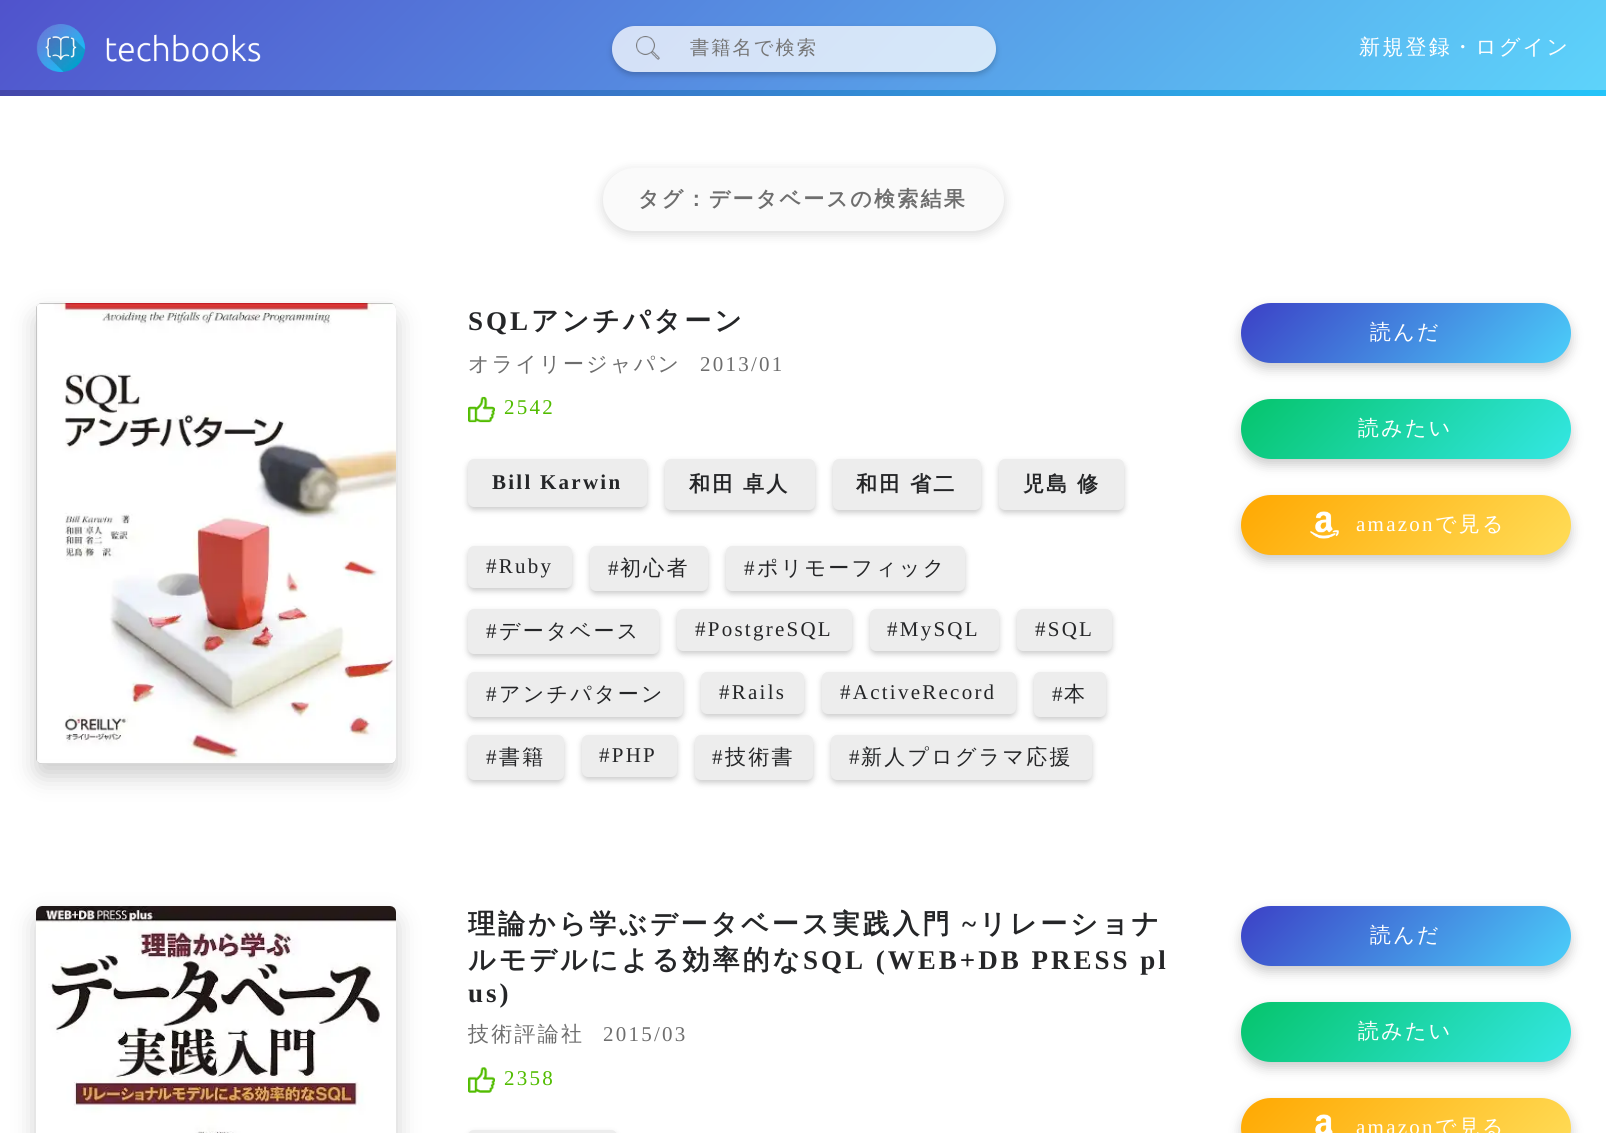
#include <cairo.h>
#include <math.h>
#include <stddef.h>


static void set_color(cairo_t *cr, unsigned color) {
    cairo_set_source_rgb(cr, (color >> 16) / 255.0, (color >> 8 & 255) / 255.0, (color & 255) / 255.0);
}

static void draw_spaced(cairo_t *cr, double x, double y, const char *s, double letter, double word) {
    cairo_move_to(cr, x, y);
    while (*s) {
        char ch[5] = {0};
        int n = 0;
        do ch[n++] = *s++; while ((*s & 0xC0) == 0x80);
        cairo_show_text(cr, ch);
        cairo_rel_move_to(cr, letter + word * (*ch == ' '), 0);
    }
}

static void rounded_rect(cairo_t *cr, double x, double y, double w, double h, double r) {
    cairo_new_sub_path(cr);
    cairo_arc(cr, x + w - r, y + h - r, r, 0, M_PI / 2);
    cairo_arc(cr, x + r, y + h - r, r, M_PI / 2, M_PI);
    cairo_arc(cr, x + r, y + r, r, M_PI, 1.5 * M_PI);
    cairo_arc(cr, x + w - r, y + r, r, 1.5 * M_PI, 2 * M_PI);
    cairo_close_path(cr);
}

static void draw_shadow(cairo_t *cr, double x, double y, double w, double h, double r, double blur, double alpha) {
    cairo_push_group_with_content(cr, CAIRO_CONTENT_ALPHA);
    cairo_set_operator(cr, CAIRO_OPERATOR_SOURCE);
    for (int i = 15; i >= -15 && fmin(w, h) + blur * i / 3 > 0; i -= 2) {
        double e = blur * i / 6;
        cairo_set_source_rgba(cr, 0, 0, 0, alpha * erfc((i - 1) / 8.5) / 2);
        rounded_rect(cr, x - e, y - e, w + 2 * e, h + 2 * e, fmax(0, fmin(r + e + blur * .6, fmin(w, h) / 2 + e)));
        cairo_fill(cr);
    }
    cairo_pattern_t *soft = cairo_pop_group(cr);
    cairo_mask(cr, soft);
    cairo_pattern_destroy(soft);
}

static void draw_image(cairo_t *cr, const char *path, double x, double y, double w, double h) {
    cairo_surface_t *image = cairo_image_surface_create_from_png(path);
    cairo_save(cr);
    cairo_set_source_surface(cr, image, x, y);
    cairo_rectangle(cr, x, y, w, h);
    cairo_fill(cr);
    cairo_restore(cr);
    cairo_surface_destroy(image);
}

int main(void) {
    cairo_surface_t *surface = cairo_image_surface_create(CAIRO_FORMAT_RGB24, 1606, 1133);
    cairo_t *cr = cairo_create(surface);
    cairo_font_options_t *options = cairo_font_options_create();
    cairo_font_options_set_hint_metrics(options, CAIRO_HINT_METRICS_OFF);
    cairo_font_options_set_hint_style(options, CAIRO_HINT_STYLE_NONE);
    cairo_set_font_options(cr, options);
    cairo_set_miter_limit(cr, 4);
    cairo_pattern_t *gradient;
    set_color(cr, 0xFFFFFF);
    cairo_paint(cr);
    gradient = cairo_pattern_create_linear(378, -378, 1229, 474);
    cairo_pattern_add_color_stop_rgba(gradient, 0, 0.314, 0.325, 0.8, 1);
    cairo_pattern_add_color_stop_rgba(gradient, 1, 0.365, 0.831, 0.984, 1);
    cairo_set_source(cr, gradient);
    cairo_pattern_destroy(gradient);
    cairo_rectangle(cr, 0, 0, 1606, 90);
    cairo_fill(cr);
    gradient = cairo_pattern_create_linear(400, -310, 1206, 496);
    cairo_pattern_add_color_stop_rgba(gradient, 0, 0.267, 0.278, 0.667, 1);
    cairo_pattern_add_color_stop_rgba(gradient, 1, 0.141, 0.769, 0.976, 1);
    cairo_set_source(cr, gradient);
    cairo_pattern_destroy(gradient);
    cairo_rectangle(cr, 0, 90, 1606, 6);
    cairo_fill(cr);
    draw_image(cr, "assets/img1.png", 36, 24, 225, 48);
    cairo_save(cr);
    cairo_set_fill_rule(cr, CAIRO_FILL_RULE_EVEN_ODD);
    cairo_new_path(cr);
    cairo_move_to(cr, 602, 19);
    cairo_line_to(cr, 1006, 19);
    cairo_line_to(cr, 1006, 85);
    cairo_line_to(cr, 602, 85);
    cairo_close_path(cr);
    cairo_move_to(cr, 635, 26);
    cairo_line_to(cr, 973, 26);
    cairo_curve_to(cr, 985.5, 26, 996, 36.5, 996, 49);
    cairo_curve_to(cr, 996, 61.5, 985.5, 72, 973, 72);
    cairo_line_to(cr, 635, 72);
    cairo_curve_to(cr, 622.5, 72, 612, 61.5, 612, 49);
    cairo_curve_to(cr, 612, 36.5, 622.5, 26, 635, 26);
    cairo_close_path(cr);
    cairo_clip(cr);
    set_color(cr, 0x000000);
    draw_shadow(cr, 612, 29, 384, 46, 23, 3, 0.2);
    cairo_restore(cr);
    cairo_set_source_rgba(cr, 1, 1, 1, 0.75);
    rounded_rect(cr, 612, 26, 384, 46, 23);
    cairo_fill(cr);
    draw_image(cr, "assets/img2.png", 636, 36, 24, 24);
    cairo_select_font_face(cr, "WenQuanYi Zen Hei Medium", CAIRO_FONT_SLANT_NORMAL, CAIRO_FONT_WEIGHT_NORMAL);
    cairo_set_font_size(cr, 19.25);
    set_color(cr, 0x757575);
    draw_spaced(cr, 690, 54, "書籍名で検索", 2, 0);
    cairo_set_font_size(cr, 21);
    set_color(cr, 0xFFFFFF);
    draw_spaced(cr, 1359, 54, "新規登録・ログイン", 2.25, 0);
    set_color(cr, 0x000000);
    draw_shadow(cr, 603, 171, 401, 63, 31.5, 6, 0.15);
    set_color(cr, 0xFAFAFA);
    rounded_rect(cr, 603, 168, 401, 63, 31.5);
    cairo_fill(cr);
    cairo_select_font_face(cr, "WenQuanYi Zen Hei", CAIRO_FONT_SLANT_NORMAL, CAIRO_FONT_WEIGHT_BOLD);
    set_color(cr, 0x6E6E6E);
    draw_spaced(cr, 638, 206, "タグ：データベースの検索結果", 2.25, 0);
    set_color(cr, 0x000000);
    draw_shadow(cr, 36, 315, 360, 461, 6, 12, 0.2);
    set_color(cr, 0xCCCCCC);
    rounded_rect(cr, 36, 303, 360, 461, 6);
    cairo_fill(cr);
    draw_image(cr, "assets/img3.png", 36, 303, 360, 461);
    cairo_select_font_face(cr, "Liberation Serif", CAIRO_FONT_SLANT_NORMAL, CAIRO_FONT_WEIGHT_BOLD);
    cairo_set_font_size(cr, 27);
    set_color(cr, 0x252628);
    draw_spaced(cr, 468, 330, "SQL", 3, 0);
    cairo_select_font_face(cr, "WenQuanYi Zen Hei", CAIRO_FONT_SLANT_NORMAL, CAIRO_FONT_WEIGHT_BOLD);
    draw_spaced(cr, 531, 330, "アンチパターン", 3, 0);
    cairo_select_font_face(cr, "WenQuanYi Zen Hei Medium", CAIRO_FONT_SLANT_NORMAL, CAIRO_FONT_WEIGHT_NORMAL);
    cairo_set_font_size(cr, 21);
    set_color(cr, 0x6E6E6E);
    draw_spaced(cr, 468, 371, "オライリージャパン", 2.25, 0);
    cairo_select_font_face(cr, "Liberation Serif", CAIRO_FONT_SLANT_NORMAL, CAIRO_FONT_WEIGHT_NORMAL);
    draw_spaced(cr, 700, 371, "2013/01", 2.25, 0);
    draw_image(cr, "assets/img4.png", 468, 396, 27, 27);
    set_color(cr, 0x51BC00);
    draw_spaced(cr, 504, 414, "2542", 2.25, 0);
    set_color(cr, 0x000000);
    draw_shadow(cr, 468, 462, 179, 48, 6, 3, 0.2);
    set_color(cr, 0xEDEDED);
    rounded_rect(cr, 468, 459, 179, 48, 6);
    cairo_fill(cr);
    cairo_select_font_face(cr, "Liberation Serif", CAIRO_FONT_SLANT_NORMAL, CAIRO_FONT_WEIGHT_BOLD);
    set_color(cr, 0x252628);
    draw_spaced(cr, 492, 489, "Bill Karwin", 2.25, 0);
    set_color(cr, 0x000000);
    draw_shadow(cr, 665, 462, 150, 51, 6, 3, 0.2);
    set_color(cr, 0xEDEDED);
    rounded_rect(cr, 665, 459, 150, 51, 6);
    cairo_fill(cr);
    cairo_select_font_face(cr, "WenQuanYi Zen Hei", CAIRO_FONT_SLANT_NORMAL, CAIRO_FONT_WEIGHT_BOLD);
    set_color(cr, 0x252628);
    draw_spaced(cr, 689, 491, "和田 卓人", 2.25, -1);
    set_color(cr, 0x000000);
    draw_shadow(cr, 833, 462, 148, 51, 6, 3, 0.2);
    set_color(cr, 0xEDEDED);
    rounded_rect(cr, 833, 459, 148, 51, 6);
    cairo_fill(cr);
    set_color(cr, 0x252628);
    draw_spaced(cr, 856, 491, "和田 省二", 2.25, -1);
    set_color(cr, 0x000000);
    draw_shadow(cr, 999, 462, 125, 51, 6, 3, 0.2);
    set_color(cr, 0xEDEDED);
    rounded_rect(cr, 999, 459, 125, 51, 6);
    cairo_fill(cr);
    set_color(cr, 0x252628);
    draw_spaced(cr, 1023, 491, "児島 修", 2.25, -1);
    set_color(cr, 0x000000);
    draw_shadow(cr, 468, 549, 104, 42, 6, 3, 0.2);
    set_color(cr, 0xEDEDED);
    rounded_rect(cr, 468, 546, 104, 42, 6);
    cairo_fill(cr);
    cairo_select_font_face(cr, "Liberation Serif", CAIRO_FONT_SLANT_NORMAL, CAIRO_FONT_WEIGHT_NORMAL);
    set_color(cr, 0x252628);
    draw_spaced(cr, 486, 573, "#Ruby", 2.25, 0);
    set_color(cr, 0x000000);
    draw_shadow(cr, 590, 549, 118, 45, 6, 3, 0.2);
    set_color(cr, 0xEDEDED);
    rounded_rect(cr, 590, 546, 118, 45, 6);
    cairo_fill(cr);
    set_color(cr, 0x252628);
    draw_spaced(cr, 608, 575, "#", 2.25, 0);
    cairo_select_font_face(cr, "WenQuanYi Zen Hei Medium", CAIRO_FONT_SLANT_NORMAL, CAIRO_FONT_WEIGHT_NORMAL);
    draw_spaced(cr, 620, 575, "初心者", 2.25, 0);
    set_color(cr, 0x000000);
    draw_shadow(cr, 726, 549, 239, 45, 6, 3, 0.2);
    set_color(cr, 0xEDEDED);
    rounded_rect(cr, 726, 546, 239, 45, 6);
    cairo_fill(cr);
    cairo_select_font_face(cr, "Liberation Serif", CAIRO_FONT_SLANT_NORMAL, CAIRO_FONT_WEIGHT_NORMAL);
    set_color(cr, 0x252628);
    draw_spaced(cr, 744, 575, "#", 2.25, 0);
    cairo_select_font_face(cr, "WenQuanYi Zen Hei Medium", CAIRO_FONT_SLANT_NORMAL, CAIRO_FONT_WEIGHT_NORMAL);
    draw_spaced(cr, 757, 575, "ポリモーフィック", 2.25, 0);
    set_color(cr, 0x000000);
    draw_shadow(cr, 468, 612, 191, 45, 6, 3, 0.2);
    set_color(cr, 0xEDEDED);
    rounded_rect(cr, 468, 609, 191, 45, 6);
    cairo_fill(cr);
    cairo_select_font_face(cr, "Liberation Serif", CAIRO_FONT_SLANT_NORMAL, CAIRO_FONT_WEIGHT_NORMAL);
    set_color(cr, 0x252628);
    draw_spaced(cr, 486, 638, "#", 2.25, 0);
    cairo_select_font_face(cr, "WenQuanYi Zen Hei Medium", CAIRO_FONT_SLANT_NORMAL, CAIRO_FONT_WEIGHT_NORMAL);
    draw_spaced(cr, 499, 638, "データベース", 2.25, 0);
    set_color(cr, 0x000000);
    draw_shadow(cr, 677, 612, 175, 42, 6, 3, 0.2);
    set_color(cr, 0xEDEDED);
    rounded_rect(cr, 677, 609, 175, 42, 6);
    cairo_fill(cr);
    cairo_select_font_face(cr, "Liberation Serif", CAIRO_FONT_SLANT_NORMAL, CAIRO_FONT_WEIGHT_NORMAL);
    set_color(cr, 0x252628);
    draw_spaced(cr, 695, 636, "#PostgreSQL", 2.25, 0);
    set_color(cr, 0x000000);
    draw_shadow(cr, 870, 612, 129, 42, 6, 3, 0.2);
    set_color(cr, 0xEDEDED);
    rounded_rect(cr, 870, 609, 129, 42, 6);
    cairo_fill(cr);
    set_color(cr, 0x252628);
    draw_spaced(cr, 887, 636, "#MySQL", 2.25, 0);
    set_color(cr, 0x000000);
    draw_shadow(cr, 1017, 612, 95, 42, 6, 3, 0.2);
    set_color(cr, 0xEDEDED);
    rounded_rect(cr, 1017, 609, 95, 42, 6);
    cairo_fill(cr);
    set_color(cr, 0x252628);
    draw_spaced(cr, 1035, 636, "#SQL", 2.25, 0);
    set_color(cr, 0x000000);
    draw_shadow(cr, 468, 675, 215, 45, 6, 3, 0.2);
    set_color(cr, 0xEDEDED);
    rounded_rect(cr, 468, 672, 215, 45, 6);
    cairo_fill(cr);
    set_color(cr, 0x252628);
    draw_spaced(cr, 486, 701, "#", 2.25, 0);
    cairo_select_font_face(cr, "WenQuanYi Zen Hei Medium", CAIRO_FONT_SLANT_NORMAL, CAIRO_FONT_WEIGHT_NORMAL);
    draw_spaced(cr, 499, 701, "アンチパターン", 2.25, 0);
    set_color(cr, 0x000000);
    draw_shadow(cr, 701, 675, 103, 42, 6, 3, 0.2);
    set_color(cr, 0xEDEDED);
    rounded_rect(cr, 701, 672, 103, 42, 6);
    cairo_fill(cr);
    cairo_select_font_face(cr, "Liberation Serif", CAIRO_FONT_SLANT_NORMAL, CAIRO_FONT_WEIGHT_NORMAL);
    set_color(cr, 0x252628);
    draw_spaced(cr, 719, 699, "#Rails", 2.25, 0);
    set_color(cr, 0x000000);
    draw_shadow(cr, 822, 675, 194, 42, 6, 3, 0.2);
    set_color(cr, 0xEDEDED);
    rounded_rect(cr, 822, 672, 194, 42, 6);
    cairo_fill(cr);
    set_color(cr, 0x252628);
    draw_spaced(cr, 840, 699, "#ActiveRecord", 2.25, 0);
    set_color(cr, 0x000000);
    draw_shadow(cr, 1034, 675, 72, 45, 6, 3, 0.2);
    set_color(cr, 0xEDEDED);
    rounded_rect(cr, 1034, 672, 72, 45, 6);
    cairo_fill(cr);
    set_color(cr, 0x252628);
    draw_spaced(cr, 1052, 701, "#", 2.25, 0);
    cairo_select_font_face(cr, "WenQuanYi Zen Hei Medium", CAIRO_FONT_SLANT_NORMAL, CAIRO_FONT_WEIGHT_NORMAL);
    draw_spaced(cr, 1064, 701, "本", 2.25, 0);
    set_color(cr, 0x000000);
    draw_shadow(cr, 468, 738, 96, 45, 6, 3, 0.2);
    set_color(cr, 0xEDEDED);
    rounded_rect(cr, 468, 735, 96, 45, 6);
    cairo_fill(cr);
    cairo_select_font_face(cr, "Liberation Serif", CAIRO_FONT_SLANT_NORMAL, CAIRO_FONT_WEIGHT_NORMAL);
    set_color(cr, 0x252628);
    draw_spaced(cr, 486, 764, "#", 2.25, 0);
    cairo_select_font_face(cr, "WenQuanYi Zen Hei Medium", CAIRO_FONT_SLANT_NORMAL, CAIRO_FONT_WEIGHT_NORMAL);
    draw_spaced(cr, 499, 764, "書籍", 2.25, 0);
    set_color(cr, 0x000000);
    draw_shadow(cr, 582, 738, 95, 42, 6, 3, 0.2);
    set_color(cr, 0xEDEDED);
    rounded_rect(cr, 582, 735, 95, 42, 6);
    cairo_fill(cr);
    cairo_select_font_face(cr, "Liberation Serif", CAIRO_FONT_SLANT_NORMAL, CAIRO_FONT_WEIGHT_NORMAL);
    set_color(cr, 0x252628);
    draw_spaced(cr, 599, 762, "#PHP", 2.25, 0);
    set_color(cr, 0x000000);
    draw_shadow(cr, 695, 738, 118, 45, 6, 3, 0.2);
    set_color(cr, 0xEDEDED);
    rounded_rect(cr, 695, 735, 118, 45, 6);
    cairo_fill(cr);
    set_color(cr, 0x252628);
    draw_spaced(cr, 712, 764, "#", 2.25, 0);
    cairo_select_font_face(cr, "WenQuanYi Zen Hei Medium", CAIRO_FONT_SLANT_NORMAL, CAIRO_FONT_WEIGHT_NORMAL);
    draw_spaced(cr, 725, 764, "技術書", 2.25, 0);
    set_color(cr, 0x000000);
    draw_shadow(cr, 831, 738, 261, 45, 6, 3, 0.2);
    set_color(cr, 0xEDEDED);
    rounded_rect(cr, 831, 735, 261, 45, 6);
    cairo_fill(cr);
    cairo_select_font_face(cr, "Liberation Serif", CAIRO_FONT_SLANT_NORMAL, CAIRO_FONT_WEIGHT_NORMAL);
    set_color(cr, 0x252628);
    draw_spaced(cr, 849, 764, "#", 2.25, 0);
    cairo_select_font_face(cr, "WenQuanYi Zen Hei Medium", CAIRO_FONT_SLANT_NORMAL, CAIRO_FONT_WEIGHT_NORMAL);
    draw_spaced(cr, 861, 764, "新人プログラマ応援", 2.25, 0);
    set_color(cr, 0x000000);
    draw_shadow(cr, 1241, 309, 330, 60, 30, 6, 0.2);
    gradient = cairo_pattern_create_linear(1308, 236, 1503, 431);
    cairo_pattern_add_color_stop_rgba(gradient, 0, 0.235, 0.251, 0.776, 1);
    cairo_pattern_add_color_stop_rgba(gradient, 1, 0.294, 0.812, 0.98, 1);
    cairo_set_source(cr, gradient);
    cairo_pattern_destroy(gradient);
    rounded_rect(cr, 1241, 303, 330, 60, 30);
    cairo_fill(cr);
    set_color(cr, 0xFFFFFF);
    draw_spaced(cr, 1370, 339, "読んだ", 2.25, 0);
    set_color(cr, 0x000000);
    draw_shadow(cr, 1241, 405, 330, 60, 30, 6, 0.2);
    gradient = cairo_pattern_create_linear(1308, 332, 1503, 527);
    cairo_pattern_add_color_stop_rgba(gradient, 0, 0.02, 0.769, 0.42, 1);
    cairo_pattern_add_color_stop_rgba(gradient, 1, 0.204, 0.906, 0.894, 1);
    cairo_set_source(cr, gradient);
    cairo_pattern_destroy(gradient);
    rounded_rect(cr, 1241, 399, 330, 60, 30);
    cairo_fill(cr);
    set_color(cr, 0xFFFFFF);
    draw_spaced(cr, 1358, 435, "読みたい", 2.25, 0);
    set_color(cr, 0x000000);
    draw_shadow(cr, 1241, 501, 330, 60, 30, 6, 0.2);
    gradient = cairo_pattern_create_linear(1308, 428, 1503, 623);
    cairo_pattern_add_color_stop_rgba(gradient, 0, 1, 0.659, 0.004, 1);
    cairo_pattern_add_color_stop_rgba(gradient, 1, 1, 0.867, 0.349, 1);
    cairo_set_source(cr, gradient);
    cairo_pattern_destroy(gradient);
    rounded_rect(cr, 1241, 495, 330, 60, 30);
    cairo_fill(cr);
    draw_image(cr, "assets/img5.png", 1310, 511, 29, 28);
    cairo_select_font_face(cr, "Liberation Serif", CAIRO_FONT_SLANT_NORMAL, CAIRO_FONT_WEIGHT_NORMAL);
    set_color(cr, 0xFFFFFF);
    draw_spaced(cr, 1356, 531, "amazon", 2.25, 0);
    cairo_select_font_face(cr, "WenQuanYi Zen Hei Medium", CAIRO_FONT_SLANT_NORMAL, CAIRO_FONT_WEIGHT_NORMAL);
    draw_spaced(cr, 1435, 531, "で見る", 2.25, 0);
    set_color(cr, 0x000000);
    draw_shadow(cr, 36, 918, 360, 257, 6, 12, 0.2);
    draw_image(cr, "assets/img6.png", 36, 906, 360, 227);
    cairo_select_font_face(cr, "WenQuanYi Zen Hei", CAIRO_FONT_SLANT_NORMAL, CAIRO_FONT_WEIGHT_BOLD);
    cairo_set_font_size(cr, 27);
    set_color(cr, 0x252628);
    draw_spaced(cr, 468, 933, "理論から学ぶデータベース実践入門", 3, 0);
    cairo_select_font_face(cr, "Liberation Serif", CAIRO_FONT_SLANT_NORMAL, CAIRO_FONT_WEIGHT_BOLD);
    draw_spaced(cr, 962, 933, "~", 3, 0);
    cairo_select_font_face(cr, "WenQuanYi Zen Hei", CAIRO_FONT_SLANT_NORMAL, CAIRO_FONT_WEIGHT_BOLD);
    draw_spaced(cr, 979, 933, "リレーショナ", 3, 0);
    draw_spaced(cr, 468, 969, "ルモデルによる効率的な", 3, 0);
    cairo_select_font_face(cr, "Liberation Serif", CAIRO_FONT_SLANT_NORMAL, CAIRO_FONT_WEIGHT_BOLD);
    draw_spaced(cr, 803, 969, "SQL (WEB+DB PRESS pl", 3, 0);
    draw_spaced(cr, 468, 1002, "us)", 3, 0);
    cairo_select_font_face(cr, "WenQuanYi Zen Hei Medium", CAIRO_FONT_SLANT_NORMAL, CAIRO_FONT_WEIGHT_NORMAL);
    cairo_set_font_size(cr, 21);
    set_color(cr, 0x6E6E6E);
    draw_spaced(cr, 468, 1041, "技術評論社", 2.25, 0);
    cairo_select_font_face(cr, "Liberation Serif", CAIRO_FONT_SLANT_NORMAL, CAIRO_FONT_WEIGHT_NORMAL);
    draw_spaced(cr, 603, 1041, "2015/03", 2.25, 0);
    draw_image(cr, "assets/img7.png", 468, 1067, 27, 26);
    set_color(cr, 0x51BC00);
    draw_spaced(cr, 504, 1085, "2358", 2.25, 0);
    set_color(cr, 0x000000);
    draw_shadow(cr, 468, 1133, 149, 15, 6, 3, 0.2);
    set_color(cr, 0xEDEDED);
    rounded_rect(cr, 468, 1130, 149, 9, 6);
    cairo_fill(cr);
    set_color(cr, 0x000000);
    draw_shadow(cr, 1241, 912, 330, 60, 30, 6, 0.2);
    gradient = cairo_pattern_create_linear(1308, 839, 1503, 1034);
    cairo_pattern_add_color_stop_rgba(gradient, 0, 0.235, 0.251, 0.776, 1);
    cairo_pattern_add_color_stop_rgba(gradient, 1, 0.294, 0.812, 0.98, 1);
    cairo_set_source(cr, gradient);
    cairo_pattern_destroy(gradient);
    rounded_rect(cr, 1241, 906, 330, 60, 30);
    cairo_fill(cr);
    cairo_select_font_face(cr, "WenQuanYi Zen Hei Medium", CAIRO_FONT_SLANT_NORMAL, CAIRO_FONT_WEIGHT_NORMAL);
    set_color(cr, 0xFFFFFF);
    draw_spaced(cr, 1370, 942, "読んだ", 2.25, 0);
    set_color(cr, 0x000000);
    draw_shadow(cr, 1241, 1008, 330, 60, 30, 6, 0.2);
    gradient = cairo_pattern_create_linear(1308, 935, 1503, 1130);
    cairo_pattern_add_color_stop_rgba(gradient, 0, 0.02, 0.769, 0.42, 1);
    cairo_pattern_add_color_stop_rgba(gradient, 1, 0.204, 0.906, 0.894, 1);
    cairo_set_source(cr, gradient);
    cairo_pattern_destroy(gradient);
    rounded_rect(cr, 1241, 1002, 330, 60, 30);
    cairo_fill(cr);
    set_color(cr, 0xFFFFFF);
    draw_spaced(cr, 1358, 1038, "読みたい", 2.25, 0);
    set_color(cr, 0x000000);
    draw_shadow(cr, 1241, 1104, 330, 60, 30, 6, 0.2);
    gradient = cairo_pattern_create_linear(1308, 1031, 1503, 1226);
    cairo_pattern_add_color_stop_rgba(gradient, 0, 1, 0.659, 0.004, 1);
    cairo_pattern_add_color_stop_rgba(gradient, 1, 1, 0.867, 0.349, 1);
    cairo_set_source(cr, gradient);
    cairo_pattern_destroy(gradient);
    rounded_rect(cr, 1241, 1098, 330, 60, 30);
    cairo_fill(cr);
    draw_image(cr, "assets/img8.png", 1315, 1114, 18, 19);
    cairo_select_font_face(cr, "Liberation Serif", CAIRO_FONT_SLANT_NORMAL, CAIRO_FONT_WEIGHT_NORMAL);
    set_color(cr, 0xFFFFFF);
    draw_spaced(cr, 1356, 1134, "amazon", 2.25, 0);
    cairo_select_font_face(cr, "WenQuanYi Zen Hei Medium", CAIRO_FONT_SLANT_NORMAL, CAIRO_FONT_WEIGHT_NORMAL);
    draw_spaced(cr, 1435, 1134, "で見る", 2.25, 0);
    cairo_surface_write_to_png(surface, "output.png");
    cairo_font_options_destroy(options);
    cairo_destroy(cr);
    cairo_surface_destroy(surface);
    return 0;
}
